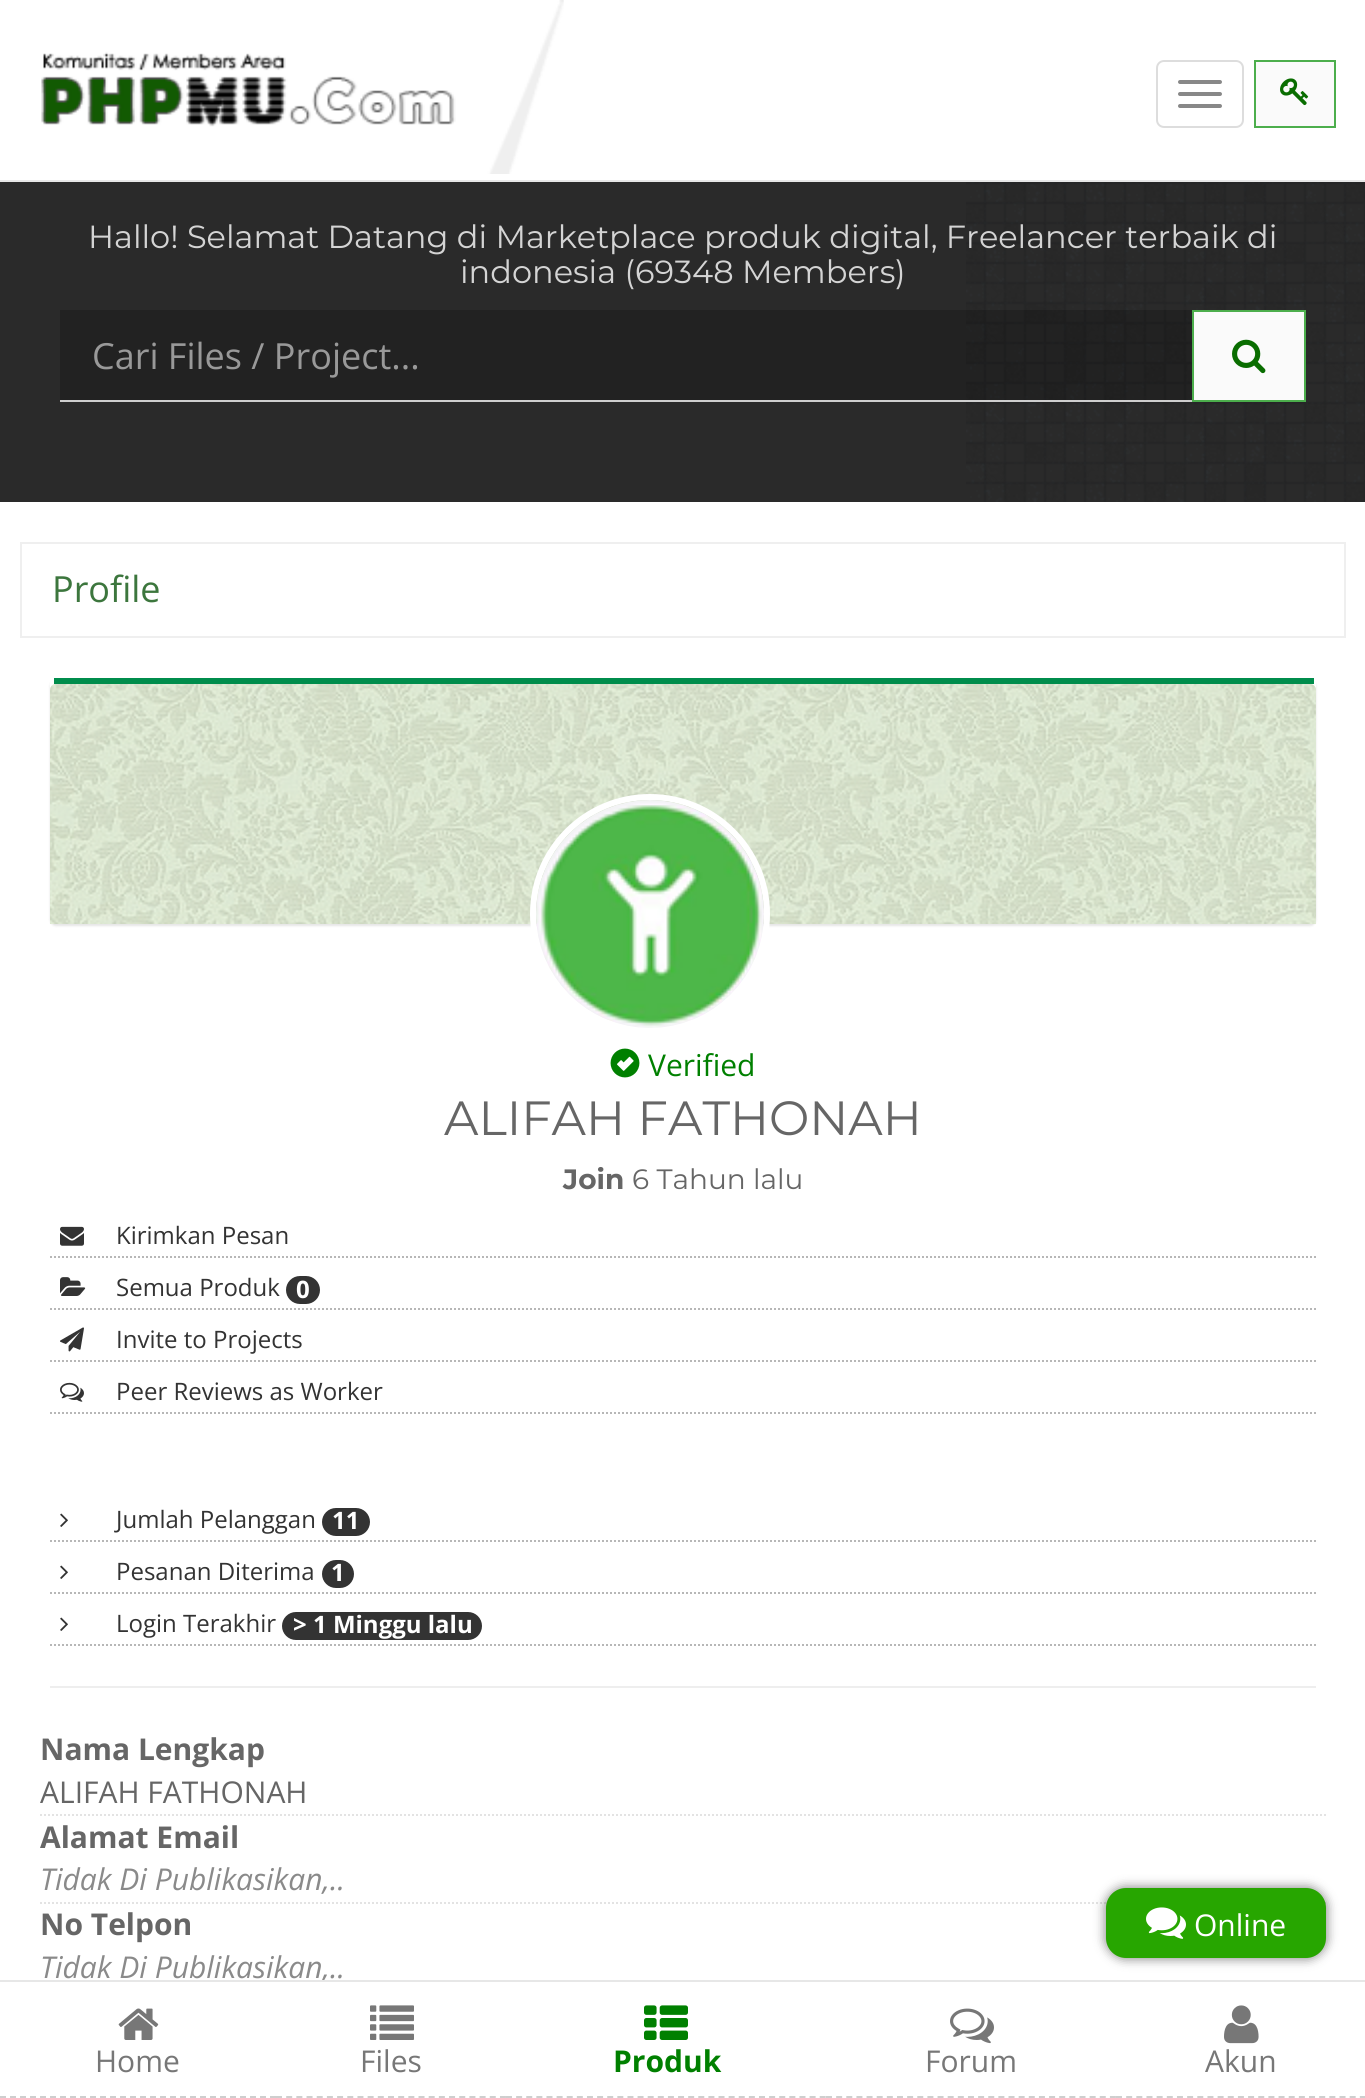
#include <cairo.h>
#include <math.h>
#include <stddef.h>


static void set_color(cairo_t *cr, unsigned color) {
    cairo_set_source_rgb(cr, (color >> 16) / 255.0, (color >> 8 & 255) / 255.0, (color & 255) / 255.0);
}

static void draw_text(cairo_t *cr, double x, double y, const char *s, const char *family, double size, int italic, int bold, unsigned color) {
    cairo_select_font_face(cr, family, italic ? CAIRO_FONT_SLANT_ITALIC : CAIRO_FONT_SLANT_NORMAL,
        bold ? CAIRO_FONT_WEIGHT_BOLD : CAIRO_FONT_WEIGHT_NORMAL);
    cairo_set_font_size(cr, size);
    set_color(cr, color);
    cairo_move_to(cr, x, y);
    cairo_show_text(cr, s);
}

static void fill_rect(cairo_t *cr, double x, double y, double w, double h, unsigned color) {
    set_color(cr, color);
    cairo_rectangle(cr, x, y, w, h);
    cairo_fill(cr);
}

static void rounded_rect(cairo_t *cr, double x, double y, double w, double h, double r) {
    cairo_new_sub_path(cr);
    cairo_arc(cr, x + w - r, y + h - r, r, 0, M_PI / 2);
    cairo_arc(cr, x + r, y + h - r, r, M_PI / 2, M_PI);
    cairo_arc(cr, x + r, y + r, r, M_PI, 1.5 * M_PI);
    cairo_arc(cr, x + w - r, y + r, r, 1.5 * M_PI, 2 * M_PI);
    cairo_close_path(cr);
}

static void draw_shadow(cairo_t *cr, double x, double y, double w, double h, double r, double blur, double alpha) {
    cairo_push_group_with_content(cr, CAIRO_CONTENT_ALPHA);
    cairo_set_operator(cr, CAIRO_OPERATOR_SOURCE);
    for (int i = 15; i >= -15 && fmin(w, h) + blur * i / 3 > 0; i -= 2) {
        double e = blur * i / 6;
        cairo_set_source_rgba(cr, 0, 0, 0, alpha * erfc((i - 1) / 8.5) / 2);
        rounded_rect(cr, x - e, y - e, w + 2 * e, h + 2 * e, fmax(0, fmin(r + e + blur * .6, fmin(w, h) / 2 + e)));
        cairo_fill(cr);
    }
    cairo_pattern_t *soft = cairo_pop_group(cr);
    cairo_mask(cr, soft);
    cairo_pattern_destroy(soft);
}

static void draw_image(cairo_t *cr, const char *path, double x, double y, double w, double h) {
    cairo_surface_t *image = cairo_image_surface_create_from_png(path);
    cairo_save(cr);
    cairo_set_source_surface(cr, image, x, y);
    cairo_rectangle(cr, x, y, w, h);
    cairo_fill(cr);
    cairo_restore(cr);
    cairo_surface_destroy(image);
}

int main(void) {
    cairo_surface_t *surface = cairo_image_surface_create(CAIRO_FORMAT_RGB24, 1365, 2098);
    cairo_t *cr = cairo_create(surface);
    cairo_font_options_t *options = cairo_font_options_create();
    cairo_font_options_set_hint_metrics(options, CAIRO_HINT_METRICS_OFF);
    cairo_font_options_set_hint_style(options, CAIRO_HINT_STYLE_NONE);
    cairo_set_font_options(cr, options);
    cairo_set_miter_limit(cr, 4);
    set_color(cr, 0xFFFFFF);
    cairo_paint(cr);
    fill_rect(cr, 0, 180, 1365, 2, 0xE7E7E7);
    draw_image(cr, "assets/img1.png", 41, 0, 523, 174);
    rounded_rect(cr, 1157, 61, 86, 66, 7);
    set_color(cr, 0xDDDDDD);
    cairo_stroke(cr);
    set_color(cr, 0x888888);
    rounded_rect(cr, 1178, 80, 44, 4, 2);
    cairo_fill(cr);
    rounded_rect(cr, 1178, 92, 44, 4, 2);
    cairo_fill(cr);
    rounded_rect(cr, 1178, 104, 44, 4, 2);
    cairo_fill(cr);
    set_color(cr, 0xFAFAFA);
    cairo_rectangle(cr, 1255, 61, 80, 66);
    cairo_fill_preserve(cr);
    set_color(cr, 0x4CAE4C);
    cairo_stroke(cr);
    draw_image(cr, "assets/img2.png", 1280, 78, 29, 28);
    fill_rect(cr, 0, 182, 1365, 320, 0x2A2A2A);
    draw_image(cr, "assets/img3.png", 966, 182, 399, 320);
    draw_text(cr, 88, 248, "Hallo! Selamat Datang di Marketplace produk digital, Freelancer terbaik di", "Montserrat", 32, 0, 0, 0xD4D4D4);
    draw_text(cr, 460, 283, "indonesia (69348 Members", "Montserrat", 32, 0, 0, 0xD4D4D4);
    draw_text(cr, 895, 283, ")", "Montserrat", 32, 0, 0, 0xD4D4D4);
    cairo_set_source_rgba(cr, 0, 0, 0, 0.2);
    cairo_rectangle(cr, 60, 310, 1132, 90);
    cairo_fill(cr);
    cairo_set_source_rgba(cr, 0, 0, 0, 0.07);
    cairo_rectangle(cr, 1192, 310, 2, 2);
    cairo_fill(cr);
    fill_rect(cr, 60, 400, 1134, 2, 0xCECECE);
    draw_text(cr, 92, 369, "Cari Files / Project...", "Open Sans", 36, 0, 0, 0x999999);
    set_color(cr, 0xFAFAFA);
    cairo_rectangle(cr, 1193, 311, 112, 90);
    cairo_fill_preserve(cr);
    set_color(cr, 0x4CAE4C);
    cairo_stroke(cr);
    draw_image(cr, "assets/img4.png", 1232, 339, 34, 35);
    cairo_rectangle(cr, 21, 543, 1324, 94);
    set_color(cr, 0xEFEFEF);
    cairo_stroke(cr);
    draw_text(cr, 52, 602, "Profile", "Open Sans", 36, 0, 0, 0x3C763D);
    set_color(cr, 0x000000);
    draw_shadow(cr, 50, 680, 1266, 246, 6, 1, 0.1);
    set_color(cr, 0xFFFFFF);
    rounded_rect(cr, 50, 678, 1266, 246, 6);
    cairo_fill(cr);
    fill_rect(cr, 54, 678, 1260, 6, 0x008D4C);
    set_color(cr, 0xDFF0D8);
    cairo_new_path(cr);
    cairo_move_to(cr, 56, 684);
    cairo_line_to(cr, 1310, 684);
    cairo_curve_to(cr, 1313.5, 684, 1316, 686.5, 1316, 690);
    cairo_line_to(cr, 1316, 924);
    cairo_line_to(cr, 50, 924);
    cairo_line_to(cr, 50, 690);
    cairo_curve_to(cr, 50, 686.5, 52.5, 684, 56, 684);
    cairo_close_path(cr);
    cairo_fill(cr);
    draw_image(cr, "assets/img5.png", 50, 684, 1266, 240);
    cairo_arc(cr, 650, 914, 117, 0, 2 * M_PI);
    set_color(cr, 0xFFFFFF);
    cairo_set_line_width(cr, 6);
    cairo_stroke(cr);
    draw_image(cr, "assets/img6.png", 536, 800, 228, 228);
    draw_image(cr, "assets/img7.png", 610, 1048, 30, 30);
    draw_text(cr, 648, 1076, "Verified", "Open Sans", 30, 0, 0, 0x008000);
    draw_text(cr, 444, 1135, "ALIFAH FATHONAH", "Montserrat", 48, 0, 0, 0x666666);
    draw_text(cr, 563, 1189, "Join", "Montserrat", 28, 0, 1, 0x666666);
    draw_text(cr, 632, 1189, "6 Tahun lalu", "Montserrat", 28, 0, 0, 0x666666);
    cairo_new_path(cr);
    cairo_move_to(cr, 50, 1257);
    cairo_line_to(cr, 1316, 1257);
    set_color(cr, 0xB7B7B7);
    cairo_set_line_width(cr, 2);
    cairo_set_dash(cr, (double[]){2, 2}, 2, 0);
    cairo_stroke(cr);
    draw_image(cr, "assets/img8.png", 60, 1226, 24, 20);
    draw_text(cr, 116, 1244, "Kirimkan Pesan", "Open Sans", 24, 0, 0, 0x333333);
    cairo_new_path(cr);
    cairo_move_to(cr, 50, 1309);
    cairo_line_to(cr, 1316, 1309);
    set_color(cr, 0xB7B7B7);
    cairo_stroke(cr);
    draw_image(cr, "assets/img9.png", 60, 1277, 26, 19);
    draw_text(cr, 116, 1296, "Semua Produk", "Open Sans", 24, 0, 0, 0x333333);
    rounded_rect(cr, 286, 1276, 34, 28, 14);
    cairo_fill(cr);
    draw_text(cr, 296, 1298, "0", "Open Sans", 24, 0, 1, 0xFFFFFF);
    cairo_new_path(cr);
    cairo_move_to(cr, 50, 1361);
    cairo_line_to(cr, 1316, 1361);
    set_color(cr, 0xB7B7B7);
    cairo_stroke(cr);
    draw_image(cr, "assets/img10.png", 60, 1327, 24, 25);
    draw_text(cr, 116, 1348, "Invite to Projects", "Open Sans", 24, 0, 0, 0x333333);
    cairo_new_path(cr);
    cairo_move_to(cr, 50, 1413);
    cairo_line_to(cr, 1316, 1413);
    set_color(cr, 0xB7B7B7);
    cairo_stroke(cr);
    draw_image(cr, "assets/img11.png", 60, 1382, 24, 20);
    draw_text(cr, 116, 1400, "Peer Reviews as Worker", "Open Sans", 24, 0, 0, 0x333333);
    cairo_new_path(cr);
    cairo_move_to(cr, 50, 1541);
    cairo_line_to(cr, 1316, 1541);
    set_color(cr, 0xB7B7B7);
    cairo_stroke(cr);
    draw_image(cr, "assets/img12.png", 60, 1513, 8, 14);
    draw_text(cr, 116, 1528, "Jumlah Pelanggan", "Open Sans", 24, 0, 0, 0x333333);
    rounded_rect(cr, 322, 1508, 48, 28, 14);
    cairo_fill(cr);
    draw_text(cr, 332, 1529, "11", "Open Sans", 24, 0, 1, 0xFFFFFF);
    cairo_new_path(cr);
    cairo_move_to(cr, 50, 1593);
    cairo_line_to(cr, 1316, 1593);
    set_color(cr, 0xB7B7B7);
    cairo_stroke(cr);
    draw_image(cr, "assets/img12.png", 60, 1565, 8, 14);
    draw_text(cr, 116, 1580, "Pesanan Diterima", "Open Sans", 24, 0, 0, 0x333333);
    rounded_rect(cr, 322, 1560, 32, 28, 14);
    cairo_fill(cr);
    draw_text(cr, 331, 1581, "1", "Open Sans", 24, 0, 1, 0xFFFFFF);
    cairo_new_path(cr);
    cairo_move_to(cr, 50, 1645);
    cairo_line_to(cr, 1316, 1645);
    set_color(cr, 0xB7B7B7);
    cairo_stroke(cr);
    draw_image(cr, "assets/img12.png", 60, 1617, 8, 14);
    draw_text(cr, 116, 1632, "Login Terakhir", "Open Sans", 24, 0, 0, 0x333333);
    rounded_rect(cr, 282, 1612, 200, 28, 14);
    cairo_fill(cr);
    draw_text(cr, 293, 1633, "> 1 Minggu lalu", "Open Sans", 24, 0, 1, 0xFFFFFF);
    fill_rect(cr, 50, 1686, 1266, 2, 0xEEEEEE);
    draw_text(cr, 40, 1760, "Nama Lengkap", "Open Sans", 30, 0, 1, 0x666666);
    cairo_new_path(cr);
    cairo_move_to(cr, 40, 1815);
    cairo_line_to(cr, 1326, 1815);
    set_color(cr, 0xE3E3E3);
    cairo_stroke(cr);
    draw_text(cr, 40, 1803, "ALIFAH FATHONAH", "Open Sans", 30, 0, 0, 0x666666);
    draw_text(cr, 40, 1848, "Alamat Email", "Open Sans", 30, 0, 1, 0x666666);
    cairo_new_path(cr);
    cairo_move_to(cr, 40, 1903);
    cairo_line_to(cr, 1326, 1903);
    set_color(cr, 0xE3E3E3);
    cairo_stroke(cr);
    draw_text(cr, 40, 1890, "Tidak Di Publikasikan,..", "Open Sans", 30, 1, 0, 0x8A8A8A);
    draw_text(cr, 40, 1935, "No Telpon", "Open Sans", 30, 0, 1, 0x666666);
    draw_text(cr, 40, 1978, "Tidak Di Publikasikan,..", "Open Sans", 30, 1, 0, 0x8A8A8A);
    set_color(cr, 0x000000);
    draw_shadow(cr, 1104, 1886, 224, 74, 22, 5, 0.4);
    set_color(cr, 0x27A600);
    rounded_rect(cr, 1106, 1888, 220, 70, 20);
    cairo_fill(cr);
    draw_image(cr, "assets/img13.png", 1146, 1907, 40, 32);
    draw_text(cr, 1194, 1936, "Online", "Open Sans", 30, 0, 0, 0xFFFFFF);
    fill_rect(cr, 0, 1980, 1365, 2, 0xE7E7E7);
    cairo_new_path(cr);
    cairo_move_to(cr, 0, 2097);
    cairo_line_to(cr, 276, 2097);
    set_color(cr, 0xCECECE);
    cairo_set_dash(cr, (double[]){6, 4}, 2, 0);
    cairo_stroke(cr);
    draw_image(cr, "assets/img14.png", 118, 2008, 41, 32);
    draw_text(cr, 95, 2072, "Home", "Open Sans", 30, 0, 0, 0x777777);
    cairo_new_path(cr);
    cairo_move_to(cr, 276, 2097);
    cairo_line_to(cr, 506, 2097);
    set_color(cr, 0xCECECE);
    cairo_set_dash(cr, (double[]){6, 4.18}, 2, 0);
    cairo_stroke(cr);
    draw_image(cr, "assets/img15.png", 370, 2005, 44, 35);
    draw_text(cr, 360, 2072, "Files", "Open Sans", 30, 0, 0, 0x777777);
    cairo_new_path(cr);
    cairo_move_to(cr, 506, 2097);
    cairo_line_to(cr, 826, 2097);
    set_color(cr, 0xCECECE);
    cairo_set_dash(cr, (double[]){6, 4.12}, 2, 0);
    cairo_stroke(cr);
    draw_image(cr, "assets/img16.png", 644, 2005, 44, 35);
    draw_text(cr, 613, 2072, "Produk", "Open Sans", 30, 0, 1, 0x008000);
    cairo_new_path(cr);
    cairo_move_to(cr, 826, 2097);
    cairo_line_to(cr, 1116, 2097);
    set_color(cr, 0xCECECE);
    cairo_set_dash(cr, (double[]){6, 4.14}, 2, 0);
    cairo_stroke(cr);
    draw_image(cr, "assets/img17.png", 950, 2008, 44, 36);
    draw_text(cr, 925, 2072, "Forum", "Open Sans", 30, 0, 0, 0x777777);
    cairo_new_path(cr);
    cairo_move_to(cr, 1116, 2097);
    cairo_line_to(cr, 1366, 2097);
    set_color(cr, 0xCECECE);
    cairo_set_dash(cr, (double[]){6, 4.16}, 2, 0);
    cairo_stroke(cr);
    draw_image(cr, "assets/img18.png", 1224, 2005, 35, 39);
    draw_text(cr, 1205, 2072, "Akun", "Open Sans", 30, 0, 0, 0x777777);
    cairo_surface_write_to_png(surface, "output.png");
    cairo_font_options_destroy(options);
    cairo_destroy(cr);
    cairo_surface_destroy(surface);
    return 0;
}
